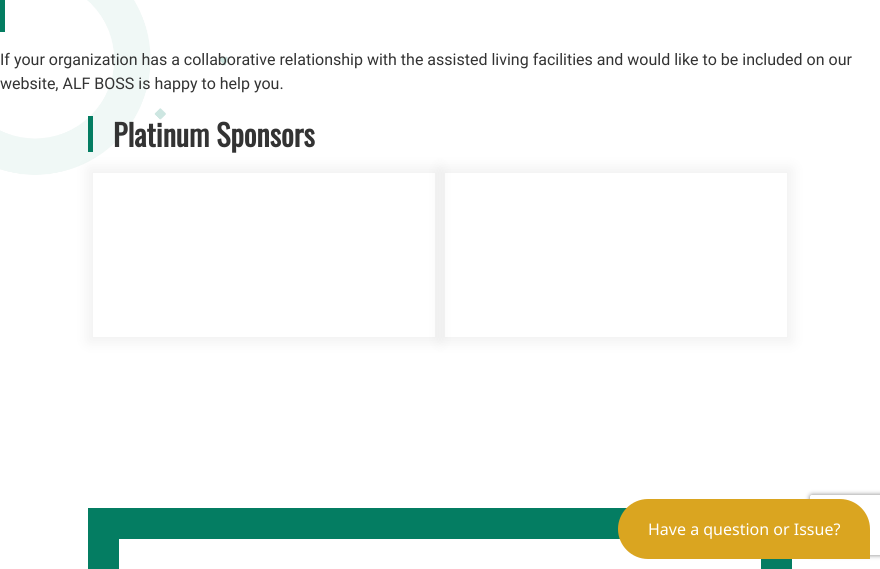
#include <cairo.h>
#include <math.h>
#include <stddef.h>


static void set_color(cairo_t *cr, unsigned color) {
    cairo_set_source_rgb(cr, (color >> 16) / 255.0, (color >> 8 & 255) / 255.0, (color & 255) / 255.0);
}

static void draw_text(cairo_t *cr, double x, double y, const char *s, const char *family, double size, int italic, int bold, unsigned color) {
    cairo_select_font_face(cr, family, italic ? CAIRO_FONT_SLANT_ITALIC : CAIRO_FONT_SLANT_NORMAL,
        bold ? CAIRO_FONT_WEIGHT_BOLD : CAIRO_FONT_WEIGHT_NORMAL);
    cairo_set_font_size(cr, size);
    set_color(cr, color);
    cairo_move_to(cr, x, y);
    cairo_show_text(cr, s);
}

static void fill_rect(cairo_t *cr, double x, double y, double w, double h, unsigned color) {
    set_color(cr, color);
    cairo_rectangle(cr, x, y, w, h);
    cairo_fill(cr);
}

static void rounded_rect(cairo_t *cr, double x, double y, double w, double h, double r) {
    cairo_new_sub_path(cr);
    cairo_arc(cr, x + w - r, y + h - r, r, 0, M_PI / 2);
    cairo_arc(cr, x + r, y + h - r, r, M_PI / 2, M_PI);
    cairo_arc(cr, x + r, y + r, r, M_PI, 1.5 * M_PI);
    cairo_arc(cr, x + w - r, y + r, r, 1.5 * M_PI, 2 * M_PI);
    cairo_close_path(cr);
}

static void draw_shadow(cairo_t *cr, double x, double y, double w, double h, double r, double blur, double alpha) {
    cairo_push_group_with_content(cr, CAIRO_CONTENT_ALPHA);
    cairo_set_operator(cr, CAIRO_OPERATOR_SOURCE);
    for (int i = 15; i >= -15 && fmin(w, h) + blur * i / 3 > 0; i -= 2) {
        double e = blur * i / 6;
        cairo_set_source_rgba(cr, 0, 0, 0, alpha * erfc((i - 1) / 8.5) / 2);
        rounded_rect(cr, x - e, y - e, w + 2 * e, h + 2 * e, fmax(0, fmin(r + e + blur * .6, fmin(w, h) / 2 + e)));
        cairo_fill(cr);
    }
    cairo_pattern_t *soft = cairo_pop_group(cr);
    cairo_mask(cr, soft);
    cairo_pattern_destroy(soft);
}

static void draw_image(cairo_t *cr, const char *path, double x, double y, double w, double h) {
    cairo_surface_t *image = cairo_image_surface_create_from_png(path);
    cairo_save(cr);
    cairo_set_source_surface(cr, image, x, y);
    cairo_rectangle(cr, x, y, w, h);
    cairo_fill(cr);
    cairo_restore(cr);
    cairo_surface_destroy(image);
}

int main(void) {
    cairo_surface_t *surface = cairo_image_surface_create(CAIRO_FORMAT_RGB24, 880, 569);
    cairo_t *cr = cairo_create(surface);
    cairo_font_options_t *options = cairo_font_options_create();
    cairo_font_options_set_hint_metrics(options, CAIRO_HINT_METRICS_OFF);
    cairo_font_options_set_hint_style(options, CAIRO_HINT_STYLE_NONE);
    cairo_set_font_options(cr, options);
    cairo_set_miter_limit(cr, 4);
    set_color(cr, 0xFFFFFF);
    cairo_paint(cr);
    draw_image(cr, "assets/img1.png", 0, 0, 228, 175);
    fill_rect(cr, 0, 0, 5, 32, 0x047D62);
    draw_text(cr, 0, 65, "If your organization has a collaborative relationship with the assisted living facilities and would like to be included on our", "Roboto", 16, 0, 0, 0x333333);
    draw_text(cr, 0, 89, "website, ALF BOSS is happy to help you.", "Roboto", 16, 0, 0, 0x333333);
    fill_rect(cr, 88, 116, 5, 36, 0x047D62);
    draw_text(cr, 113, 147, "Platinum Sponsors", "Oswald", 30, 0, 1, 0x333333);
    cairo_save(cr);
    cairo_set_fill_rule(cr, CAIRO_FILL_RULE_EVEN_ODD);
    cairo_new_path(cr);
    cairo_move_to(cr, 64, 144);
    cairo_line_to(cr, 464, 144);
    cairo_line_to(cr, 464, 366);
    cairo_line_to(cr, 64, 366);
    cairo_close_path(cr);
    cairo_move_to(cr, 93, 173);
    cairo_line_to(cr, 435, 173);
    cairo_line_to(cr, 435, 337);
    cairo_line_to(cr, 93, 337);
    cairo_close_path(cr);
    cairo_clip(cr);
    set_color(cr, 0x000000);
    draw_shadow(cr, 88, 168, 352, 174, 0, 7.5, 0.06);
    cairo_restore(cr);
    cairo_save(cr);
    cairo_set_fill_rule(cr, CAIRO_FILL_RULE_EVEN_ODD);
    cairo_new_path(cr);
    cairo_move_to(cr, 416, 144);
    cairo_line_to(cr, 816, 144);
    cairo_line_to(cr, 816, 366);
    cairo_line_to(cr, 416, 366);
    cairo_close_path(cr);
    cairo_move_to(cr, 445, 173);
    cairo_line_to(cr, 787, 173);
    cairo_line_to(cr, 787, 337);
    cairo_line_to(cr, 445, 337);
    cairo_close_path(cr);
    cairo_clip(cr);
    set_color(cr, 0x000000);
    draw_shadow(cr, 440, 168, 352, 174, 0, 7.5, 0.06);
    cairo_restore(cr);
    cairo_new_path(cr);
    cairo_move_to(cr, 103.5, 523.5);
    cairo_line_to(cr, 776.5, 523.5);
    cairo_line_to(cr, 776.5, 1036.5);
    cairo_line_to(cr, 103.5, 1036.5);
    cairo_close_path(cr);
    set_color(cr, 0x047D62);
    cairo_set_line_width(cr, 31);
    cairo_stroke(cr);
    cairo_save(cr);
    cairo_set_fill_rule(cr, CAIRO_FILL_RULE_EVEN_ODD);
    cairo_new_path(cr);
    cairo_move_to(cr, 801, 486);
    cairo_line_to(cr, 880, 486);
    cairo_line_to(cr, 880, 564);
    cairo_line_to(cr, 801, 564);
    cairo_close_path(cr);
    cairo_move_to(cr, 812, 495);
    cairo_line_to(cr, 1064, 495);
    cairo_curve_to(cr, 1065, 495, 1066, 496, 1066, 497);
    cairo_line_to(cr, 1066, 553);
    cairo_curve_to(cr, 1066, 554, 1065, 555, 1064, 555);
    cairo_line_to(cr, 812, 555);
    cairo_curve_to(cr, 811, 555, 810, 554, 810, 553);
    cairo_line_to(cr, 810, 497);
    cairo_curve_to(cr, 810, 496, 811, 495, 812, 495);
    cairo_close_path(cr);
    cairo_clip(cr);
    set_color(cr, 0x808080);
    draw_shadow(cr, 810, 495, 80, 60, 2, 2.5, 1);
    cairo_restore(cr);
    set_color(cr, 0xDAA520);
    cairo_new_path(cr);
    cairo_move_to(cr, 648, 499);
    cairo_line_to(cr, 840, 499);
    cairo_curve_to(cr, 856.5, 499, 870, 512.5, 870, 529);
    cairo_line_to(cr, 870, 559);
    cairo_line_to(cr, 648, 559);
    cairo_curve_to(cr, 631.5, 559, 618, 545.5, 618, 529);
    cairo_curve_to(cr, 618, 512.5, 631.5, 499, 648, 499);
    cairo_close_path(cr);
    cairo_fill(cr);
    draw_text(cr, 648, 535, "Have a question or Issue?", "Noto Sans", 16, 0, 0, 0xFFFFFF);
    cairo_surface_write_to_png(surface, "output.png");
    cairo_font_options_destroy(options);
    cairo_destroy(cr);
    cairo_surface_destroy(surface);
    return 0;
}
